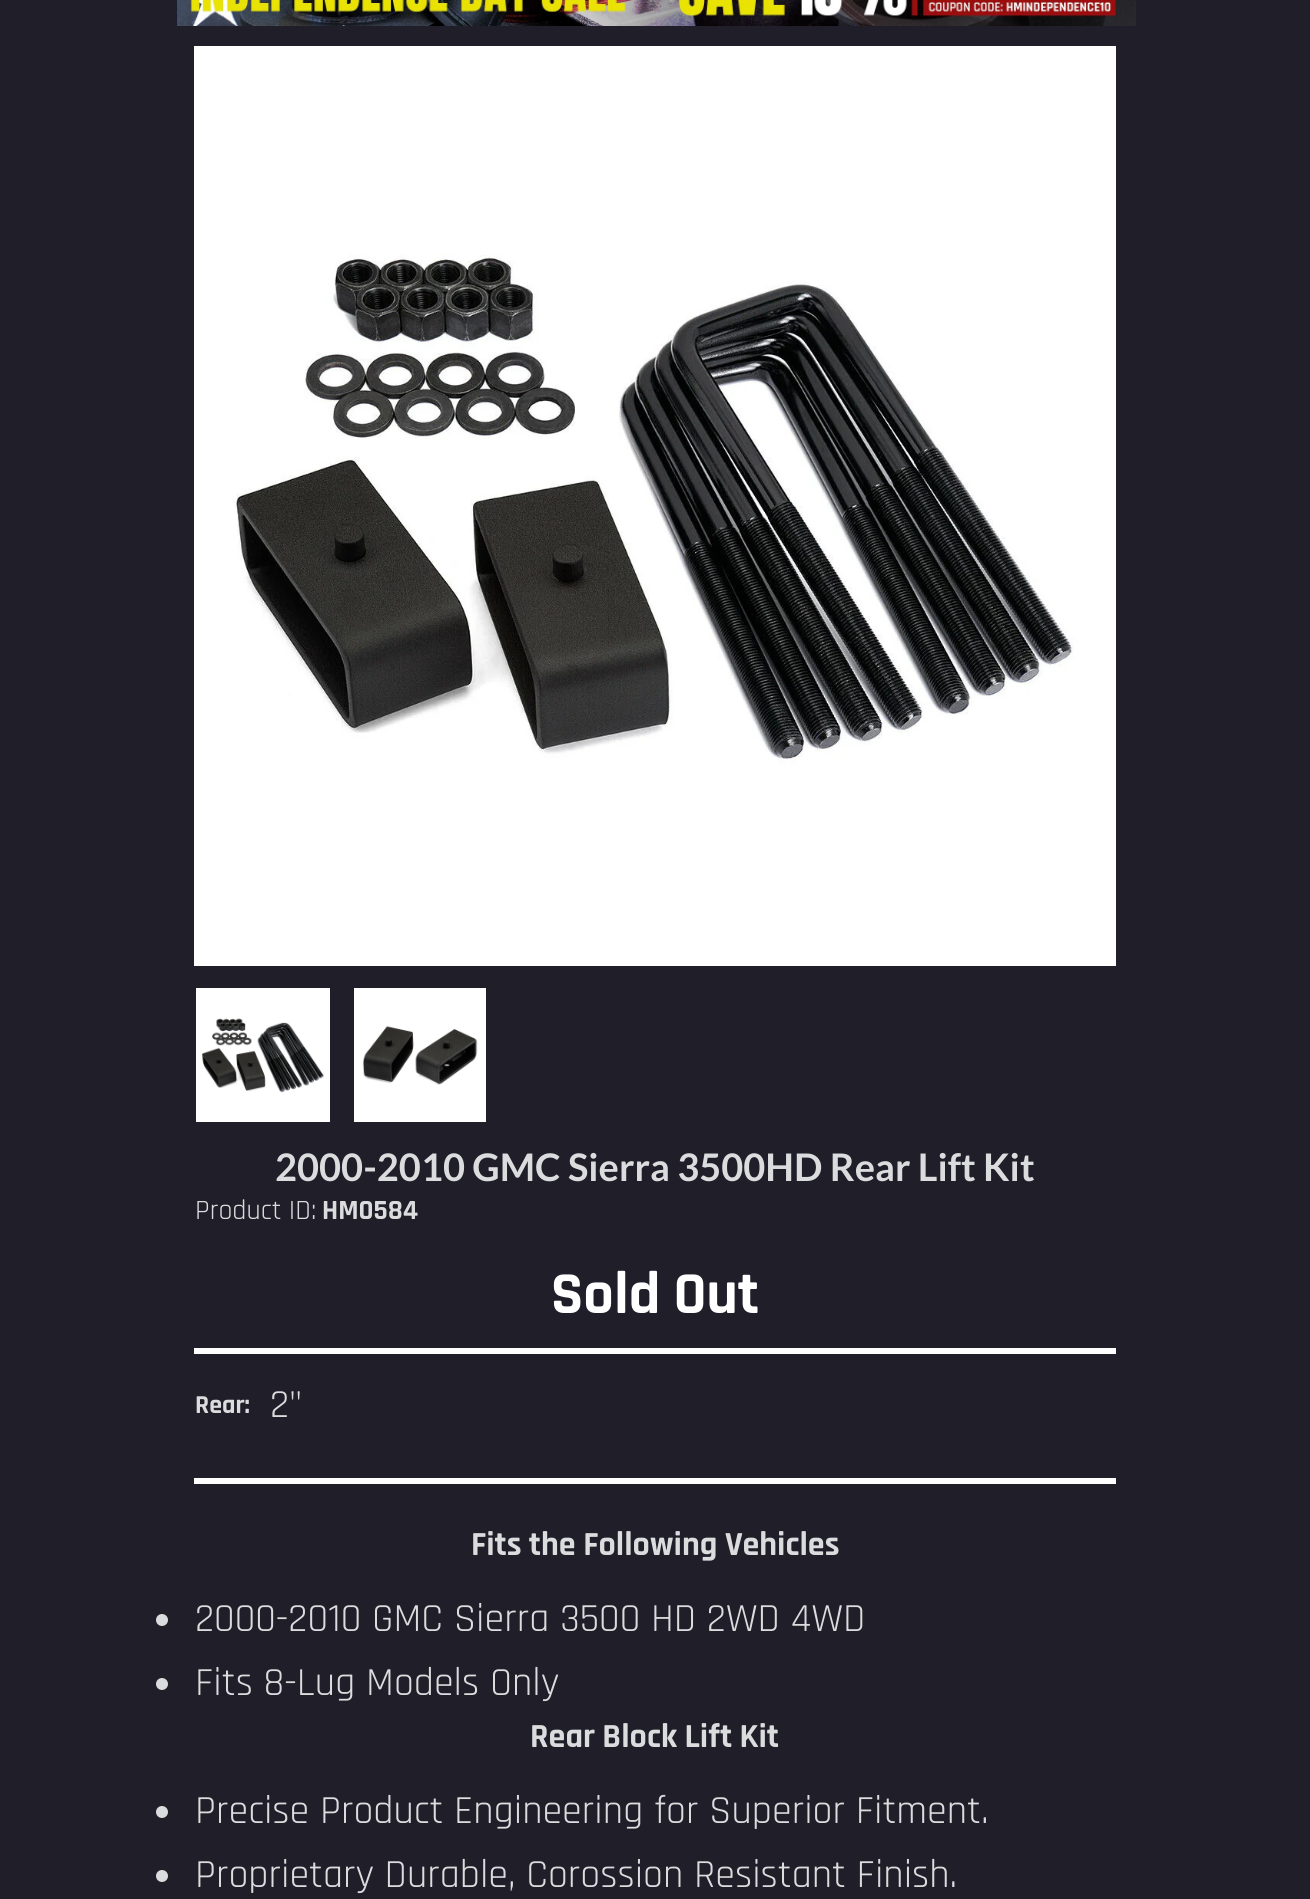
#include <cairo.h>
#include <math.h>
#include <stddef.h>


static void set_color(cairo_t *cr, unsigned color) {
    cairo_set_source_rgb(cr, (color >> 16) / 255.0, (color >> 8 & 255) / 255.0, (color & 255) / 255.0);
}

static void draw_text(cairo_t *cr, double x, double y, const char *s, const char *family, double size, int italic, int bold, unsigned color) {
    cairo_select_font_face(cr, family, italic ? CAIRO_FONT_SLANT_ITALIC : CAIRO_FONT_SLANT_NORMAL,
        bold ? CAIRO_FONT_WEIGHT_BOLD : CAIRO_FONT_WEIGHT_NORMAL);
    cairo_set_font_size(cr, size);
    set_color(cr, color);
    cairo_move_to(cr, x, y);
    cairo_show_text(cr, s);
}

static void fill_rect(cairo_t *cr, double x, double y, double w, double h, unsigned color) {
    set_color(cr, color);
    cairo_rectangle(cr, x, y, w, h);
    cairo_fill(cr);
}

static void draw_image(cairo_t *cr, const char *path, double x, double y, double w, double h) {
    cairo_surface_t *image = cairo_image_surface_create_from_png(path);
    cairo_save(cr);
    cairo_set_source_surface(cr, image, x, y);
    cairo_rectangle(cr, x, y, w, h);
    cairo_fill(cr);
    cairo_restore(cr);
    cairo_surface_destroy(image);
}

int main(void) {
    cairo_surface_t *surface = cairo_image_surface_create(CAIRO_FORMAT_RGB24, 1310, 1899);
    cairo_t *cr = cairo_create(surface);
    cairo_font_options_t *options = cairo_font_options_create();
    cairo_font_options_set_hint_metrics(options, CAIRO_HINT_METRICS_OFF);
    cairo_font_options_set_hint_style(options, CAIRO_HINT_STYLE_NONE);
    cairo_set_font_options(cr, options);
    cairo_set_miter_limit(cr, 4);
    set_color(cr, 0x201E29);
    cairo_paint(cr);
    draw_image(cr, "assets/img1.png", 176, 0, 960, 26);
    draw_image(cr, "assets/img2.png", 194, 46, 922, 920);
    draw_image(cr, "assets/img3.png", 196, 988, 134, 134);
    draw_image(cr, "assets/img4.png", 354, 988, 132, 134);
    draw_text(cr, 275, 1181, "2000-2010 GMC Sierra 3500HD Rear Lift Kit", "Lato", 38, 0, 1, 0xDBDCDD);
    draw_text(cr, 195, 1219, "Product ID:", "Rajdhani", 28, 0, 0, 0xDBDCDD);
    draw_text(cr, 322, 1219, "HM0584", "Rajdhani", 28, 0, 1, 0xDBDCDD);
    draw_text(cr, 551, 1313, "Sold Out", "Rajdhani", 60, 0, 1, 0xFFFFFF);
    fill_rect(cr, 194, 1348, 922, 6, 0xFFFFFF);
    fill_rect(cr, 194, 1478, 922, 6, 0xFFFFFF);
    draw_text(cr, 195, 1413, "Rear:", "Rajdhani", 26, 0, 1, 0xDBDCDD);
    draw_text(cr, 270, 1417, "2\"", "Rajdhani", 40, 0, 0, 0xDBDCDD);
    draw_text(cr, 471, 1555, "Fits the Following Vehicles", "Rajdhani", 34, 0, 1, 0xDBDCDD);
    cairo_new_path(cr);
    cairo_arc(cr, 162, 1620, 6, 0, 2 * M_PI);
    cairo_fill(cr);
    draw_text(cr, 195, 1631, "2000-2010 GMC Sierra 3500 HD 2WD 4WD", "Rajdhani", 40, 0, 0, 0xDBDCDD);
    cairo_new_path(cr);
    cairo_arc(cr, 162, 1684, 6, 0, 2 * M_PI);
    cairo_fill(cr);
    draw_text(cr, 195, 1695, "Fits 8-Lug Models Only", "Rajdhani", 40, 0, 0, 0xDBDCDD);
    draw_text(cr, 530, 1747, "Rear Block Lift Kit", "Rajdhani", 34, 0, 1, 0xDBDCDD);
    cairo_new_path(cr);
    cairo_arc(cr, 162, 1812, 6, 0, 2 * M_PI);
    cairo_fill(cr);
    draw_text(cr, 195, 1823, "Precise Product Engineering for Superior Fitment.", "Rajdhani", 40, 0, 0, 0xDBDCDD);
    cairo_new_path(cr);
    cairo_arc(cr, 162, 1876, 6, 0, 2 * M_PI);
    cairo_fill(cr);
    draw_text(cr, 195, 1887, "Proprietary Durable, Corossion Resistant Finish.", "Rajdhani", 40, 0, 0, 0xDBDCDD);
    cairo_surface_write_to_png(surface, "output.png");
    cairo_font_options_destroy(options);
    cairo_destroy(cr);
    cairo_surface_destroy(surface);
    return 0;
}
